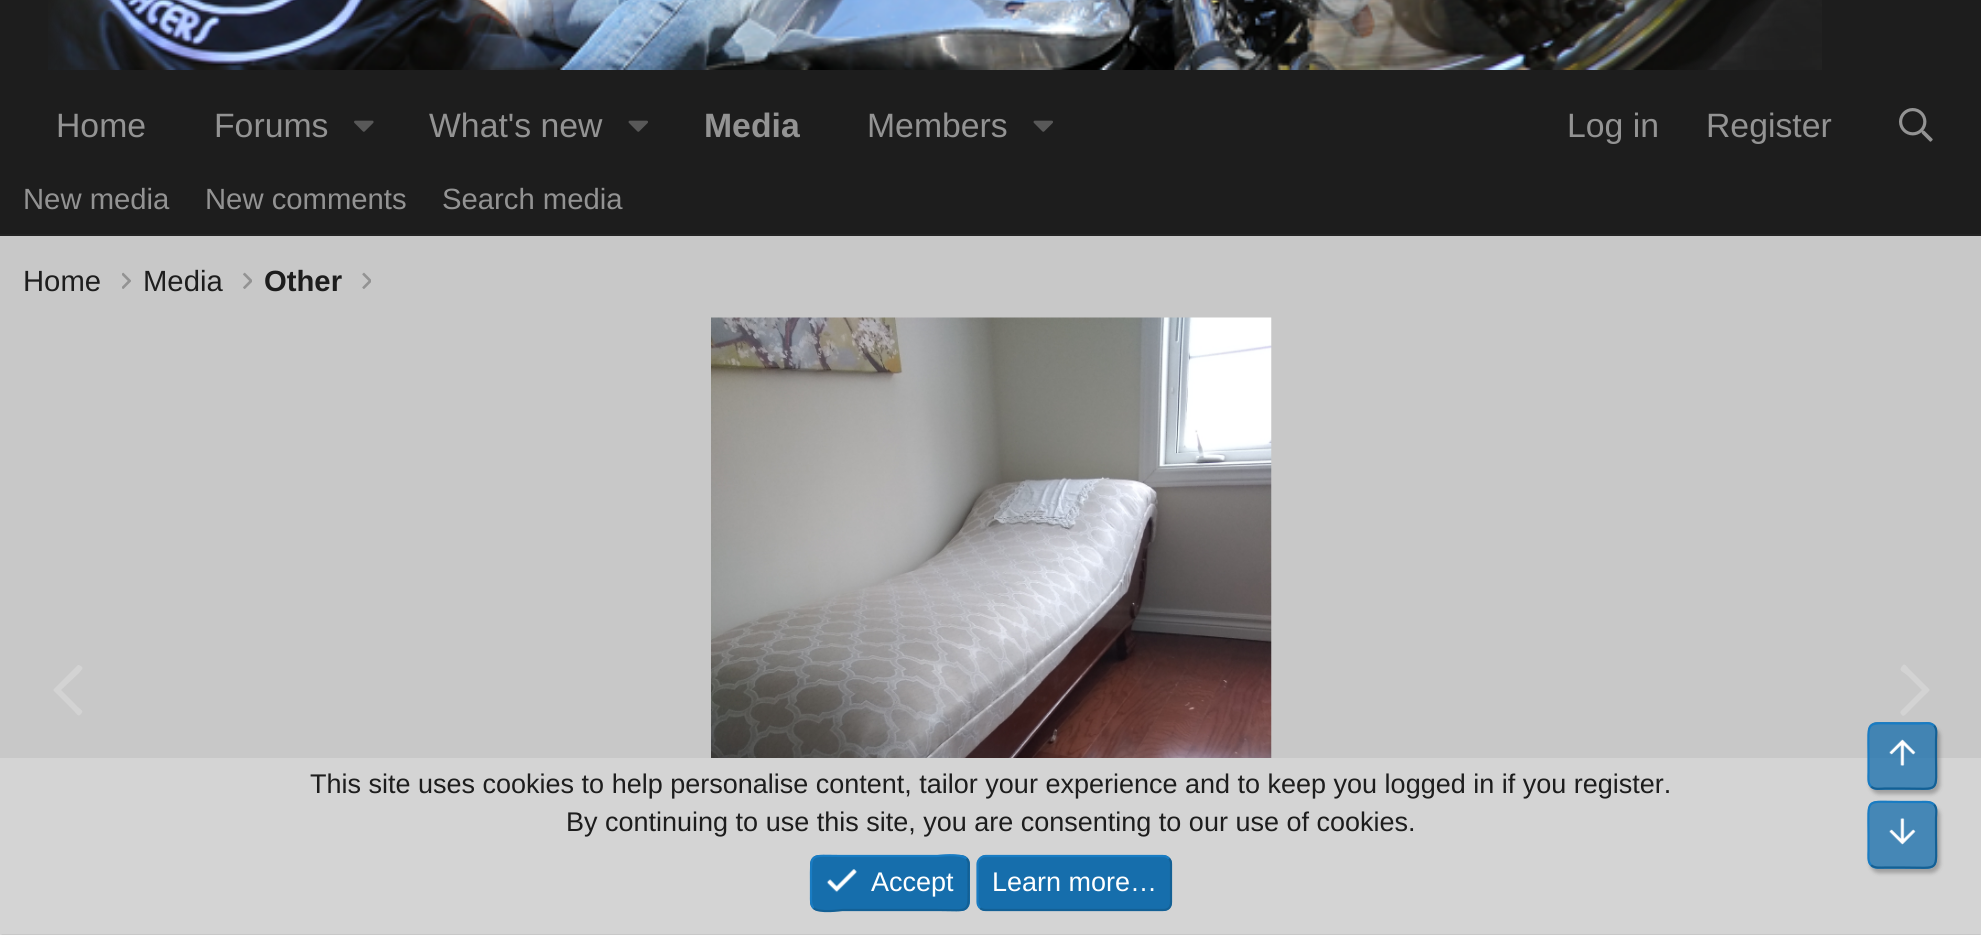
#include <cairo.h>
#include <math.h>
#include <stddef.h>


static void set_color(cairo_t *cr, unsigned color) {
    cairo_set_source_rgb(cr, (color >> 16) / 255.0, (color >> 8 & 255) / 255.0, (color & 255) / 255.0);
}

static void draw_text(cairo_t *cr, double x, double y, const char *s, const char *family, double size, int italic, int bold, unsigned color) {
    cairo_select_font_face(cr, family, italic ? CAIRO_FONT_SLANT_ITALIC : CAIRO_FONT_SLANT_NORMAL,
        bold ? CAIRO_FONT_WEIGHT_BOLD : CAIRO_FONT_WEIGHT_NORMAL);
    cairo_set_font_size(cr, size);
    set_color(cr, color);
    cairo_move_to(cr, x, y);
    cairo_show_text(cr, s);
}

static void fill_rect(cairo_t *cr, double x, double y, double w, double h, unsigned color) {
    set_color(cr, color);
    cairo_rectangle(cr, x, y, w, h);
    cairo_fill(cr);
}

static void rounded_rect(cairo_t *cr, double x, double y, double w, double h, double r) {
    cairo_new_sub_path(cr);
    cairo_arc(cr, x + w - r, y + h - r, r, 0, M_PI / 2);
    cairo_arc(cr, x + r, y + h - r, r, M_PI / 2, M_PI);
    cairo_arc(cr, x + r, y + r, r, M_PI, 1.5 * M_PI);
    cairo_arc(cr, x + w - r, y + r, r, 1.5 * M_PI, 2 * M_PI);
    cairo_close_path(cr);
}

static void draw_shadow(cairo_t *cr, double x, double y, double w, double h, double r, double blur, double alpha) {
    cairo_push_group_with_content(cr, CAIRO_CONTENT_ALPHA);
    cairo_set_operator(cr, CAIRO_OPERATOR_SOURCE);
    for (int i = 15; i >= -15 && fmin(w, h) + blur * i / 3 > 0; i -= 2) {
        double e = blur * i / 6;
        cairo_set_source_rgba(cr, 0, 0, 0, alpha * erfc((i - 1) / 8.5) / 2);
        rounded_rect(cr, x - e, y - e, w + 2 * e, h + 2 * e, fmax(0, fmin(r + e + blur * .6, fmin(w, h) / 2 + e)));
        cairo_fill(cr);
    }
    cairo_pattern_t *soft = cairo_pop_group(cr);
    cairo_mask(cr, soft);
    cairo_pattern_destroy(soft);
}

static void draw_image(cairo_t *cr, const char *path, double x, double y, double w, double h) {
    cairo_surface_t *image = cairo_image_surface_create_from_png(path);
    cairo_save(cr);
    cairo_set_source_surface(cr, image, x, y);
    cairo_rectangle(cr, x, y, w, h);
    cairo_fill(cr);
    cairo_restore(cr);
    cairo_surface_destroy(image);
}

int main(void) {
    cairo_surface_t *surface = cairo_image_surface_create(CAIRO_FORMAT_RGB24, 1981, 935);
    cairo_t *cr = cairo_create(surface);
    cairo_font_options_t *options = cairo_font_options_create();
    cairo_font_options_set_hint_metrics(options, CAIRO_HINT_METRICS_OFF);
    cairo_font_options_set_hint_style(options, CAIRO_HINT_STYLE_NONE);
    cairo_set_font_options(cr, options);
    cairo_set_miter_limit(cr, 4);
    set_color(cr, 0xC8C8C8);
    cairo_paint(cr);
    fill_rect(cr, 0, 0, 1981, 83, 0x1D1D1D);
    draw_image(cr, "assets/img1.png", 48, 0, 1774, 70);
    fill_rect(cr, 0, 83, 1981, 151, 0x1D1D1D);
    draw_text(cr, 56, 137, "Home", "Liberation Sans", 33.75, 0, 0, 0x939393);
    draw_text(cr, 214, 137, "Forums", "Liberation Sans", 33.75, 0, 0, 0x939393);
    draw_image(cr, "assets/img2.png", 354, 120, 20, 12);
    draw_text(cr, 429, 137, "What's new", "Liberation Sans", 33.75, 0, 0, 0x939393);
    draw_image(cr, "assets/img3.png", 628, 120, 20, 12);
    draw_text(cr, 704, 137, "Media", "Liberation Sans", 33.75, 0, 1, 0x939393);
    draw_text(cr, 867, 137, "Members", "Liberation Sans", 33.75, 0, 0, 0x939393);
    draw_image(cr, "assets/img3.png", 1033, 120, 20, 12);
    draw_text(cr, 1567, 137, "Log in", "Liberation Sans", 33.75, 0, 0, 0x939393);
    draw_text(cr, 1706, 137, "Register", "Liberation Sans", 33.75, 0, 0, 0x939393);
    draw_image(cr, "assets/img4.png", 1899, 108, 34, 34);
    fill_rect(cr, 0, 234, 1981, 2, 0x232323);
    draw_text(cr, 23, 209, "New media", "Liberation Sans", 29.25, 0, 0, 0x939393);
    draw_text(cr, 205, 209, "New comments", "Liberation Sans", 29.25, 0, 0, 0x939393);
    draw_text(cr, 442, 209, "Search media", "Liberation Sans", 29.25, 0, 0, 0x939393);
    draw_text(cr, 23, 291, "Home", "Liberation Sans", 29.25, 0, 0, 0x1D1D1D);
    draw_image(cr, "assets/img5.png", 122, 272, 9, 17);
    draw_text(cr, 143, 291, "Media", "Liberation Sans", 29.25, 0, 0, 0x1D1D1D);
    draw_image(cr, "assets/img6.png", 243, 272, 9, 17);
    draw_text(cr, 264, 291, "Other", "Liberation Sans", 29.25, 0, 1, 0x1D1D1D);
    draw_image(cr, "assets/img7.png", 362, 272, 9, 17);
    set_color(cr, 0xD3D3D3);
    cairo_new_path(cr);
    cairo_move_to(cr, 80, 715);
    cairo_curve_to(cr, 85, 710, 81, 711, 75, 704);
    cairo_line_to(cr, 61, 690);
    cairo_line_to(cr, 79, 673);
    cairo_curve_to(cr, 82, 669, 85, 668, 79, 665);
    cairo_line_to(cr, 78, 665);
    cairo_line_to(cr, 58, 685);
    cairo_curve_to(cr, 52, 691, 52, 689, 58, 695);
    cairo_line_to(cr, 74, 711);
    cairo_curve_to(cr, 76, 713, 78, 717, 80, 715);
    cairo_close_path(cr);
    cairo_fill(cr);
    draw_image(cr, "assets/img8.png", 711, 317, 561, 441);
    cairo_new_path(cr);
    cairo_move_to(cr, 1903, 665);
    cairo_curve_to(cr, 1898, 671, 1901, 670, 1908, 676);
    cairo_line_to(cr, 1922, 690);
    cairo_line_to(cr, 1904, 708);
    cairo_curve_to(cr, 1901, 711, 1898, 712, 1903, 716);
    cairo_line_to(cr, 1905, 715);
    cairo_line_to(cr, 1925, 695);
    cairo_curve_to(cr, 1931, 689, 1931, 691, 1925, 685);
    cairo_line_to(cr, 1909, 669);
    cairo_curve_to(cr, 1907, 667, 1905, 663, 1903, 665);
    cairo_close_path(cr);
    cairo_fill(cr);
    fill_rect(cr, 0, 758, 1981, 177, 0xD4D4D4);
    set_color(cr, 0xC8C8C8);
    cairo_new_path(cr);
    cairo_move_to(cr, 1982, 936);
    cairo_line_to(cr, 0, 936);
    cairo_line_to(cr, 2, 934);
    cairo_line_to(cr, 1980, 934);
    cairo_close_path(cr);
    cairo_fill(cr);
    draw_text(cr, 310, 793, "This site uses cookies to help personalise content, tailor your experience and to keep you logged in if you register.", "Liberation Sans", 27, 0, 0, 0x1D1D1D);
    draw_text(cr, 566, 831, "By continuing to use this site, you are consenting to our use of cookies.", "Liberation Sans", 27, 0, 0, 0x1D1D1D);
    set_color(cr, 0x166EAC);
    rounded_rect(cr, 810, 855, 160, 56, 9);
    cairo_fill(cr);
    cairo_new_path(cr);
    cairo_move_to(cr, 966.5, 858.5);
    cairo_curve_to(cr, 969.5, 861.5, 968.5, 866.5, 968.5, 870.5);
    cairo_line_to(cr, 968.5, 883);
    cairo_curve_to(cr, 968.5, 915, 971.5, 910, 937, 910);
    cairo_line_to(cr, 842.5, 910);
    cairo_curve_to(cr, 841.5, 910, 819, 913.5, 813.5, 908);
    set_color(cr, 0x136095);
    cairo_set_line_width(cr, 2.2);
    cairo_stroke(cr);
    cairo_new_path(cr);
    cairo_move_to(cr, 813.5, 908);
    cairo_curve_to(cr, 810.5, 904.5, 811, 900, 811, 896);
    cairo_line_to(cr, 811, 883);
    cairo_curve_to(cr, 811, 851.5, 808.5, 856, 842.5, 856);
    cairo_line_to(cr, 937, 856);
    cairo_curve_to(cr, 938, 856, 960.5, 853, 966.5, 858.5);
    set_color(cr, 0x197CC3);
    cairo_stroke(cr);
    draw_image(cr, "assets/img9.png", 826, 869, 31, 24);
    draw_text(cr, 871, 891, "Accept", "Liberation Sans", 27, 0, 0, 0xFFFFFF);
    set_color(cr, 0x166EAC);
    rounded_rect(cr, 977, 855, 195, 56, 9);
    cairo_fill(cr);
    cairo_new_path(cr);
    cairo_move_to(cr, 1169, 858.5);
    cairo_curve_to(cr, 1170.5, 860, 1171, 862, 1171, 864);
    cairo_line_to(cr, 1171, 902);
    cairo_curve_to(cr, 1171, 904.5, 1170.5, 906.5, 1169, 908);
    cairo_curve_to(cr, 1167.5, 909.5, 1165.5, 910, 1163, 910);
    cairo_line_to(cr, 985.5, 910);
    cairo_curve_to(cr, 983.5, 910, 981.5, 909.5, 980, 908);
    set_color(cr, 0x136095);
    cairo_stroke(cr);
    cairo_new_path(cr);
    cairo_move_to(cr, 980, 908);
    cairo_curve_to(cr, 978.5, 906.5, 977.5, 904.5, 977.5, 902);
    cairo_line_to(cr, 977.5, 864);
    cairo_curve_to(cr, 977.5, 862, 978.5, 860, 980, 858.5);
    cairo_curve_to(cr, 981.5, 857, 983.5, 856, 985.5, 856);
    cairo_line_to(cr, 1163, 856);
    cairo_curve_to(cr, 1165.5, 856, 1167.5, 857, 1169, 858.5);
    set_color(cr, 0x197CC3);
    cairo_stroke(cr);
    draw_text(cr, 992, 891, "Learn more…", "Liberation Sans", 27, 0, 0, 0xFFFFFF);
    cairo_save(cr);
    cairo_set_fill_rule(cr, CAIRO_FILL_RULE_EVEN_ODD);
    cairo_new_path(cr);
    cairo_move_to(cr, 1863, 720);
    cairo_line_to(cr, 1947, 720);
    cairo_line_to(cr, 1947, 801);
    cairo_line_to(cr, 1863, 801);
    cairo_close_path(cr);
    cairo_move_to(cr, 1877, 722);
    cairo_line_to(cr, 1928, 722);
    cairo_curve_to(cr, 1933, 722, 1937, 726, 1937, 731);
    cairo_line_to(cr, 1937, 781);
    cairo_curve_to(cr, 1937, 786, 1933, 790, 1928, 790);
    cairo_line_to(cr, 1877, 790);
    cairo_curve_to(cr, 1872, 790, 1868, 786, 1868, 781);
    cairo_line_to(cr, 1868, 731);
    cairo_curve_to(cr, 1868, 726, 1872, 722, 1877, 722);
    cairo_close_path(cr);
    cairo_clip(cr);
    set_color(cr, 0x000000);
    draw_shadow(cr, 1870, 727, 70, 67, 9, 2, 0.25);
    cairo_restore(cr);
    cairo_set_source_rgba(cr, 0.086, 0.431, 0.675, 0.75);
    rounded_rect(cr, 1868, 722, 69, 68, 9);
    cairo_fill(cr);
    cairo_new_path(cr);
    cairo_move_to(cr, 1934, 725.5);
    cairo_curve_to(cr, 1937.5, 729, 1936, 735, 1936, 739.5);
    cairo_line_to(cr, 1936, 756);
    cairo_curve_to(cr, 1936, 794, 1941, 788.5, 1902.5, 788.5);
    cairo_line_to(cr, 1885, 788.5);
    cairo_curve_to(cr, 1881, 788.5, 1874.5, 790, 1871, 786.5);
    set_color(cr, 0x136095);
    cairo_stroke(cr);
    cairo_new_path(cr);
    cairo_move_to(cr, 1871, 786.5);
    cairo_curve_to(cr, 1867.5, 783, 1868.5, 777, 1868.5, 772.5);
    cairo_line_to(cr, 1868.5, 756);
    cairo_curve_to(cr, 1868.5, 718, 1864, 723.5, 1902.5, 723.5);
    cairo_line_to(cr, 1919.5, 723.5);
    cairo_curve_to(cr, 1924, 723.5, 1930, 722, 1934, 725.5);
    set_color(cr, 0x197CC3);
    cairo_stroke(cr);
    draw_image(cr, "assets/img10.png", 1889, 739, 27, 27);
    cairo_save(cr);
    cairo_set_fill_rule(cr, CAIRO_FILL_RULE_EVEN_ODD);
    cairo_new_path(cr);
    cairo_move_to(cr, 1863, 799);
    cairo_line_to(cr, 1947, 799);
    cairo_line_to(cr, 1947, 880);
    cairo_line_to(cr, 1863, 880);
    cairo_close_path(cr);
    cairo_move_to(cr, 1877, 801);
    cairo_line_to(cr, 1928, 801);
    cairo_curve_to(cr, 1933, 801, 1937, 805, 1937, 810);
    cairo_line_to(cr, 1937, 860);
    cairo_curve_to(cr, 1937, 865, 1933, 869, 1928, 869);
    cairo_line_to(cr, 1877, 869);
    cairo_curve_to(cr, 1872, 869, 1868, 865, 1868, 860);
    cairo_line_to(cr, 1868, 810);
    cairo_curve_to(cr, 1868, 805, 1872, 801, 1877, 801);
    cairo_close_path(cr);
    cairo_clip(cr);
    set_color(cr, 0x000000);
    draw_shadow(cr, 1870, 806, 70, 67, 9, 2, 0.25);
    cairo_restore(cr);
    cairo_set_source_rgba(cr, 0.086, 0.431, 0.675, 0.75);
    rounded_rect(cr, 1868, 801, 69, 68, 9);
    cairo_fill(cr);
    cairo_new_path(cr);
    cairo_move_to(cr, 1934, 804.5);
    cairo_curve_to(cr, 1937.5, 808, 1936, 814, 1936, 818);
    cairo_line_to(cr, 1936, 835);
    cairo_curve_to(cr, 1936, 873, 1941, 867.5, 1902.5, 867.5);
    cairo_line_to(cr, 1885, 867.5);
    cairo_curve_to(cr, 1881, 867.5, 1874.5, 868.5, 1871, 865);
    set_color(cr, 0x136095);
    cairo_stroke(cr);
    cairo_new_path(cr);
    cairo_move_to(cr, 1871, 865);
    cairo_curve_to(cr, 1867.5, 861.5, 1868.5, 855.5, 1868.5, 851);
    cairo_line_to(cr, 1868.5, 835);
    cairo_curve_to(cr, 1868.5, 796.5, 1864, 802, 1902.5, 802);
    cairo_line_to(cr, 1919.5, 802);
    cairo_curve_to(cr, 1924, 802, 1930, 801, 1934, 804.5);
    set_color(cr, 0x197CC3);
    cairo_stroke(cr);
    draw_image(cr, "assets/img11.png", 1889, 818, 27, 27);
    cairo_surface_write_to_png(surface, "output.png");
    cairo_font_options_destroy(options);
    cairo_destroy(cr);
    cairo_surface_destroy(surface);
    return 0;
}
